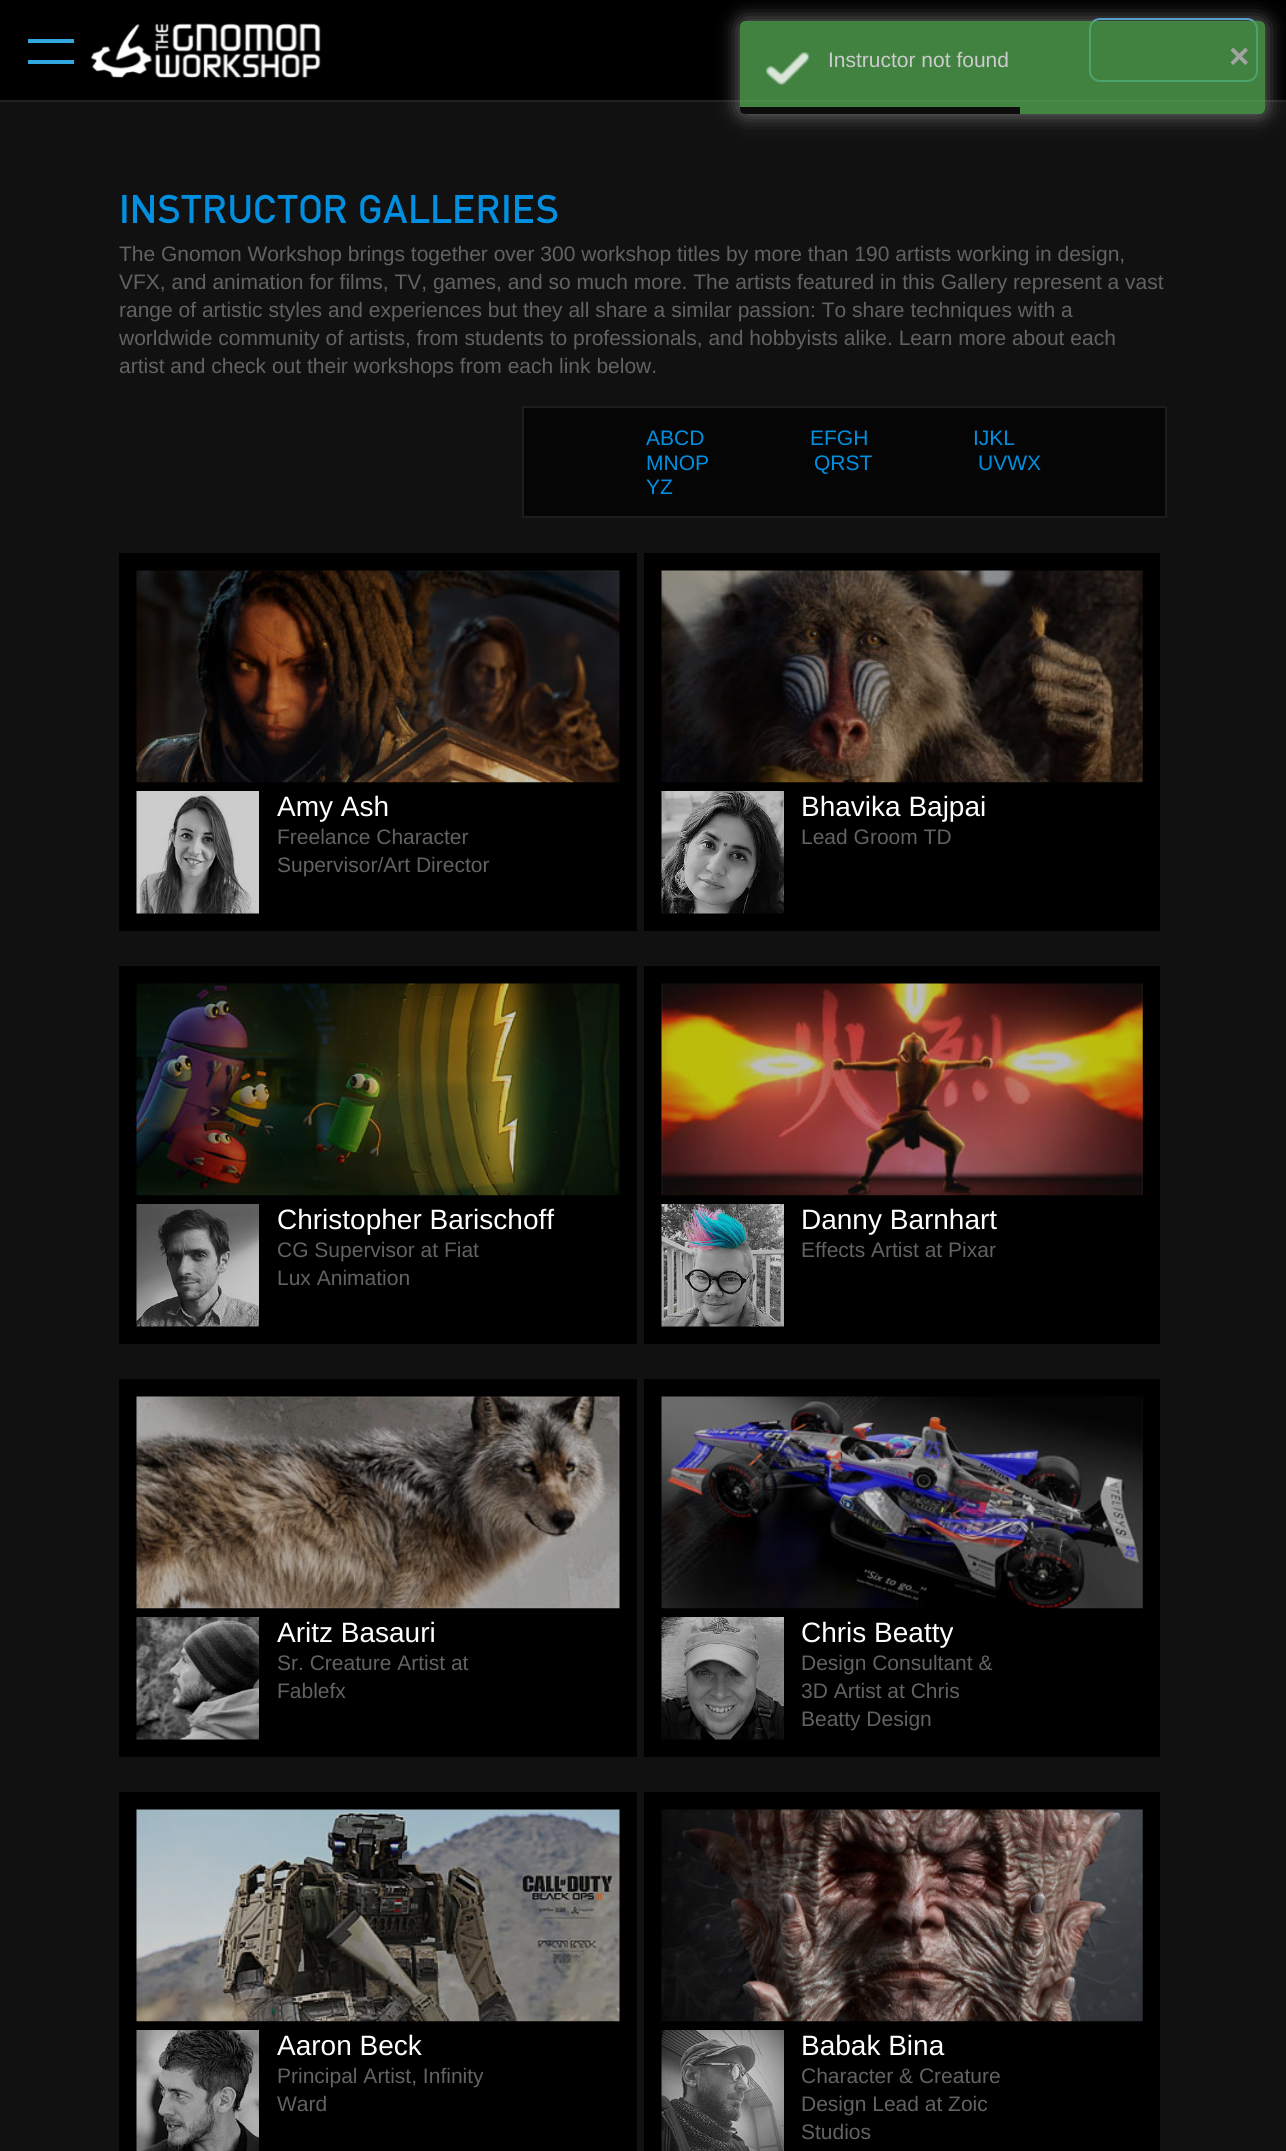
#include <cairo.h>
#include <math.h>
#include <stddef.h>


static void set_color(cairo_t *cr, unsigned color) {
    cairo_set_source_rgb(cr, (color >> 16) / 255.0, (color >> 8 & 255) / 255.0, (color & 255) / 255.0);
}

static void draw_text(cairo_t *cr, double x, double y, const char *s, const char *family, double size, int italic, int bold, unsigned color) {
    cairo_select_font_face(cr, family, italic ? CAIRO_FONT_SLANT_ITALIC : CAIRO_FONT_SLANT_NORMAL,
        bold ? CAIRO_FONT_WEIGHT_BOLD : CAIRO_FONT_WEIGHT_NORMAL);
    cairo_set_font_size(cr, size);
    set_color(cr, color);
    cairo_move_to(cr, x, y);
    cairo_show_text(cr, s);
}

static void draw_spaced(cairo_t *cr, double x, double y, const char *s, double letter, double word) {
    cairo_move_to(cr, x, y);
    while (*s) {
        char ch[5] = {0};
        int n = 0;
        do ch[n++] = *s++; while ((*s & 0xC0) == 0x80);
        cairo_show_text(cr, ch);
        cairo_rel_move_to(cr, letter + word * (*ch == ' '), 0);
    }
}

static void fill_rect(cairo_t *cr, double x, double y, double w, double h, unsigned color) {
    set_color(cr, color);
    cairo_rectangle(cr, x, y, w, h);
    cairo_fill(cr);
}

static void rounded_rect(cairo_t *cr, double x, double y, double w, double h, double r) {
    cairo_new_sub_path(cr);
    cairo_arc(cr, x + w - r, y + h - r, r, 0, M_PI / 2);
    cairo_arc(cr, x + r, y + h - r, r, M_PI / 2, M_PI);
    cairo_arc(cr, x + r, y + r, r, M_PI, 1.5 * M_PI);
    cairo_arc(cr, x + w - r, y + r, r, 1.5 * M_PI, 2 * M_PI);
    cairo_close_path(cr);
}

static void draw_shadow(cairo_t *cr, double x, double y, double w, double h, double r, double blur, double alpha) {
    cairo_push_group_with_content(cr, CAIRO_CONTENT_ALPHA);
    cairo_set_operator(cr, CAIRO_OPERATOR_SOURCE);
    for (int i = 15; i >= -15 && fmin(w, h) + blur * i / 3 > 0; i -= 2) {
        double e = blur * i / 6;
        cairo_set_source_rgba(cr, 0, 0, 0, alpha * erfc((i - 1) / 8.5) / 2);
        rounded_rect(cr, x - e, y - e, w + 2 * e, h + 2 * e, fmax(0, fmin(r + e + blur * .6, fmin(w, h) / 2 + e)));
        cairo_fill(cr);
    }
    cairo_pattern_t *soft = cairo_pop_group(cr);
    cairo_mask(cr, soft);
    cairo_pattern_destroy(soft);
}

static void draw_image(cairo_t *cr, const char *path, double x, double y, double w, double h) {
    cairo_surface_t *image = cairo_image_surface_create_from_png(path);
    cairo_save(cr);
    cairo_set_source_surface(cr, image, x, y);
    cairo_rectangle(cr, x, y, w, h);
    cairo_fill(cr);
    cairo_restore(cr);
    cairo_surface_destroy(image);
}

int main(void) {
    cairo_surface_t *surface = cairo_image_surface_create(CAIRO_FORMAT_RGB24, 1286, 2151);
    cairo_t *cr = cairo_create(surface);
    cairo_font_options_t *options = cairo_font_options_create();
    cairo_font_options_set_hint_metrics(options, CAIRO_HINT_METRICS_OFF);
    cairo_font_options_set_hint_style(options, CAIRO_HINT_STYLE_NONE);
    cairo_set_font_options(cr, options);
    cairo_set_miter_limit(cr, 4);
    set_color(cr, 0x000000);
    cairo_paint(cr);
    fill_rect(cr, 28, 39, 46, 4, 0x33A8E0);
    fill_rect(cr, 28, 60, 46, 4, 0x33A8E0);
    draw_image(cr, "assets/img1.png", 91, 23, 230, 55);
    rounded_rect(cr, 1090, 19, 167, 62, 10);
    cairo_stroke(cr);
    fill_rect(cr, 0, 102, 1286, 2049, 0x111111);
    fill_rect(cr, 0, 100, 1286, 2, 0x212121);
    cairo_save(cr);
    cairo_set_fill_rule(cr, CAIRO_FILL_RULE_EVEN_ODD);
    cairo_new_path(cr);
    cairo_move_to(cr, 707, 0);
    cairo_line_to(cr, 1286, 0);
    cairo_line_to(cr, 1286, 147);
    cairo_line_to(cr, 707, 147);
    cairo_close_path(cr);
    cairo_move_to(cr, 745, 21);
    cairo_line_to(cr, 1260, 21);
    cairo_curve_to(cr, 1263, 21, 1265, 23, 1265, 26);
    cairo_line_to(cr, 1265, 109);
    cairo_curve_to(cr, 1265, 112, 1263, 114, 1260, 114);
    cairo_line_to(cr, 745, 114);
    cairo_curve_to(cr, 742, 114, 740, 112, 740, 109);
    cairo_line_to(cr, 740, 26);
    cairo_curve_to(cr, 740, 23, 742, 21, 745, 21);
    cairo_close_path(cr);
    cairo_clip(cr);
    set_color(cr, 0x999999);
    draw_shadow(cr, 740, 21, 525, 93, 5, 10.5, 0.8);
    cairo_restore(cr);
    cairo_set_source_rgba(cr, 0.318, 0.639, 0.318, 0.8);
    rounded_rect(cr, 740, 21, 525, 93, 5);
    cairo_fill(cr);
    draw_image(cr, "assets/img2.png", 766, 52, 44, 33);
    draw_text(cr, 828, 67, "Instructor not found", "Liberation Sans", 21, 0, 0, 0xCCCCCC);
    draw_text(cr, 1229, 68, "×", "Liberation Sans", 35, 0, 1, 0xA3A3A3);
    set_color(cr, 0x0C0C0C);
    cairo_new_path(cr);
    cairo_move_to(cr, 740, 107);
    cairo_line_to(cr, 1020, 107);
    cairo_line_to(cr, 1020, 114);
    cairo_line_to(cr, 745, 114);
    cairo_curve_to(cr, 742, 114, 740, 112, 740, 109);
    cairo_close_path(cr);
    cairo_fill(cr);
    cairo_select_font_face(cr, "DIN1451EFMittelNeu", CAIRO_FONT_SLANT_NORMAL, CAIRO_FONT_WEIGHT_NORMAL);
    cairo_set_font_size(cr, 42);
    set_color(cr, 0x028FDF);
    draw_spaced(cr, 119, 223, "INSTRUCTOR GALLERIES", 0, -10);
    draw_text(cr, 119, 261, "The Gnomon Workshop brings together over 300 workshop titles by more than 190 artists working in design,", "Liberation Sans", 21, 0, 0, 0x626262);
    draw_text(cr, 119, 289, "VFX, and animation for films, TV, games, and so much more. The artists featured in this Gallery represent a vast", "Liberation Sans", 21, 0, 0, 0x626262);
    draw_text(cr, 119, 317, "range of artistic styles and experiences but they all share a similar passion: To share techniques with a", "Liberation Sans", 21, 0, 0, 0x626262);
    draw_text(cr, 119, 345, "worldwide community of artists, from students to professionals, and hobbyists alike. Learn more about each", "Liberation Sans", 21, 0, 0, 0x626262);
    draw_text(cr, 119, 373, "artist and check out their workshops from each link below.", "Liberation Sans", 21, 0, 0, 0x626262);
    set_color(cr, 0x050505);
    cairo_rectangle(cr, 523, 407, 643, 110);
    cairo_fill_preserve(cr);
    set_color(cr, 0x1C1C1C);
    cairo_stroke(cr);
    draw_text(cr, 646, 445, "ABCD", "Liberation Sans", 21, 0, 0, 0x028FDF);
    draw_text(cr, 810, 445, "EFGH", "Liberation Sans", 21, 0, 0, 0x028FDF);
    draw_text(cr, 973, 445, "IJKL", "Liberation Sans", 21, 0, 0, 0x028FDF);
    draw_text(cr, 646, 470, "MNOP", "Liberation Sans", 21, 0, 0, 0x028FDF);
    draw_text(cr, 814, 470, "QRST", "Liberation Sans", 21, 0, 0, 0x028FDF);
    draw_text(cr, 978, 470, "UVWX", "Liberation Sans", 21, 0, 0, 0x028FDF);
    draw_text(cr, 646, 494, "YZ", "Liberation Sans", 21, 0, 0, 0x028FDF);
    fill_rect(cr, 119, 553, 518, 378, 0x000000);
    draw_image(cr, "assets/img3.png", 136, 570, 484, 213);
    draw_image(cr, "assets/img4.png", 136, 791, 123, 123);
    draw_text(cr, 277, 816, "Amy Ash", "Liberation Sans", 28, 0, 0, 0xFFFFFF);
    draw_text(cr, 277, 844, "Freelance Character", "Liberation Sans", 21, 0, 0, 0x626262);
    draw_text(cr, 277, 872, "Supervisor/Art Director", "Liberation Sans", 21, 0, 0, 0x626262);
    fill_rect(cr, 644, 553, 516, 378, 0x000000);
    draw_image(cr, "assets/img5.png", 661, 570, 482, 213);
    draw_image(cr, "assets/img6.png", 661, 791, 123, 123);
    draw_text(cr, 801, 816, "Bhavika Bajpai", "Liberation Sans", 28, 0, 0, 0xFFFFFF);
    draw_text(cr, 801, 844, "Lead Groom TD", "Liberation Sans", 21, 0, 0, 0x626262);
    fill_rect(cr, 119, 966, 518, 378, 0x000000);
    draw_image(cr, "assets/img7.png", 136, 983, 484, 213);
    draw_image(cr, "assets/img8.png", 136, 1204, 123, 123);
    draw_text(cr, 277, 1229, "Christopher Barischoff", "Liberation Sans", 28, 0, 0, 0xFFFFFF);
    draw_text(cr, 277, 1257, "CG Supervisor at Fiat", "Liberation Sans", 21, 0, 0, 0x626262);
    draw_text(cr, 277, 1285, "Lux Animation", "Liberation Sans", 21, 0, 0, 0x626262);
    fill_rect(cr, 644, 966, 516, 378, 0x000000);
    draw_image(cr, "assets/img9.png", 661, 983, 482, 213);
    draw_image(cr, "assets/img10.png", 661, 1204, 123, 123);
    draw_text(cr, 801, 1229, "Danny Barnhart", "Liberation Sans", 28, 0, 0, 0xFFFFFF);
    draw_text(cr, 801, 1257, "Effects Artist at Pixar", "Liberation Sans", 21, 0, 0, 0x626262);
    fill_rect(cr, 119, 1379, 518, 378, 0x000000);
    draw_image(cr, "assets/img11.png", 136, 1396, 484, 213);
    draw_image(cr, "assets/img12.png", 136, 1617, 123, 123);
    draw_text(cr, 277, 1642, "Aritz Basauri", "Liberation Sans", 28, 0, 0, 0xFFFFFF);
    draw_text(cr, 277, 1670, "Sr. Creature Artist at", "Liberation Sans", 21, 0, 0, 0x626262);
    draw_text(cr, 277, 1698, "Fablefx", "Liberation Sans", 21, 0, 0, 0x626262);
    fill_rect(cr, 644, 1379, 516, 378, 0x000000);
    draw_image(cr, "assets/img13.png", 661, 1396, 482, 213);
    draw_image(cr, "assets/img14.png", 661, 1617, 123, 123);
    draw_text(cr, 801, 1642, "Chris Beatty", "Liberation Sans", 28, 0, 0, 0xFFFFFF);
    draw_text(cr, 801, 1670, "Design Consultant &", "Liberation Sans", 21, 0, 0, 0x626262);
    draw_text(cr, 801, 1698, "3D Artist at Chris", "Liberation Sans", 21, 0, 0, 0x626262);
    draw_text(cr, 801, 1726, "Beatty Design", "Liberation Sans", 21, 0, 0, 0x626262);
    fill_rect(cr, 119, 1792, 518, 359, 0x000000);
    draw_image(cr, "assets/img15.png", 136, 1809, 484, 213);
    draw_image(cr, "assets/img16.png", 136, 2030, 123, 121);
    draw_text(cr, 277, 2055, "Aaron Beck", "Liberation Sans", 28, 0, 0, 0xFFFFFF);
    draw_text(cr, 277, 2083, "Principal Artist, Infinity", "Liberation Sans", 21, 0, 0, 0x626262);
    draw_text(cr, 277, 2111, "Ward", "Liberation Sans", 21, 0, 0, 0x626262);
    fill_rect(cr, 644, 1792, 516, 359, 0x000000);
    draw_image(cr, "assets/img17.png", 661, 1809, 482, 213);
    draw_image(cr, "assets/img18.png", 661, 2030, 123, 121);
    draw_text(cr, 801, 2055, "Babak Bina", "Liberation Sans", 28, 0, 0, 0xFFFFFF);
    draw_text(cr, 801, 2083, "Character & Creature", "Liberation Sans", 21, 0, 0, 0x626262);
    draw_text(cr, 801, 2111, "Design Lead at Zoic", "Liberation Sans", 21, 0, 0, 0x626262);
    draw_text(cr, 801, 2139, "Studios", "Liberation Sans", 21, 0, 0, 0x626262);
    cairo_surface_write_to_png(surface, "output.png");
    cairo_font_options_destroy(options);
    cairo_destroy(cr);
    cairo_surface_destroy(surface);
    return 0;
}
